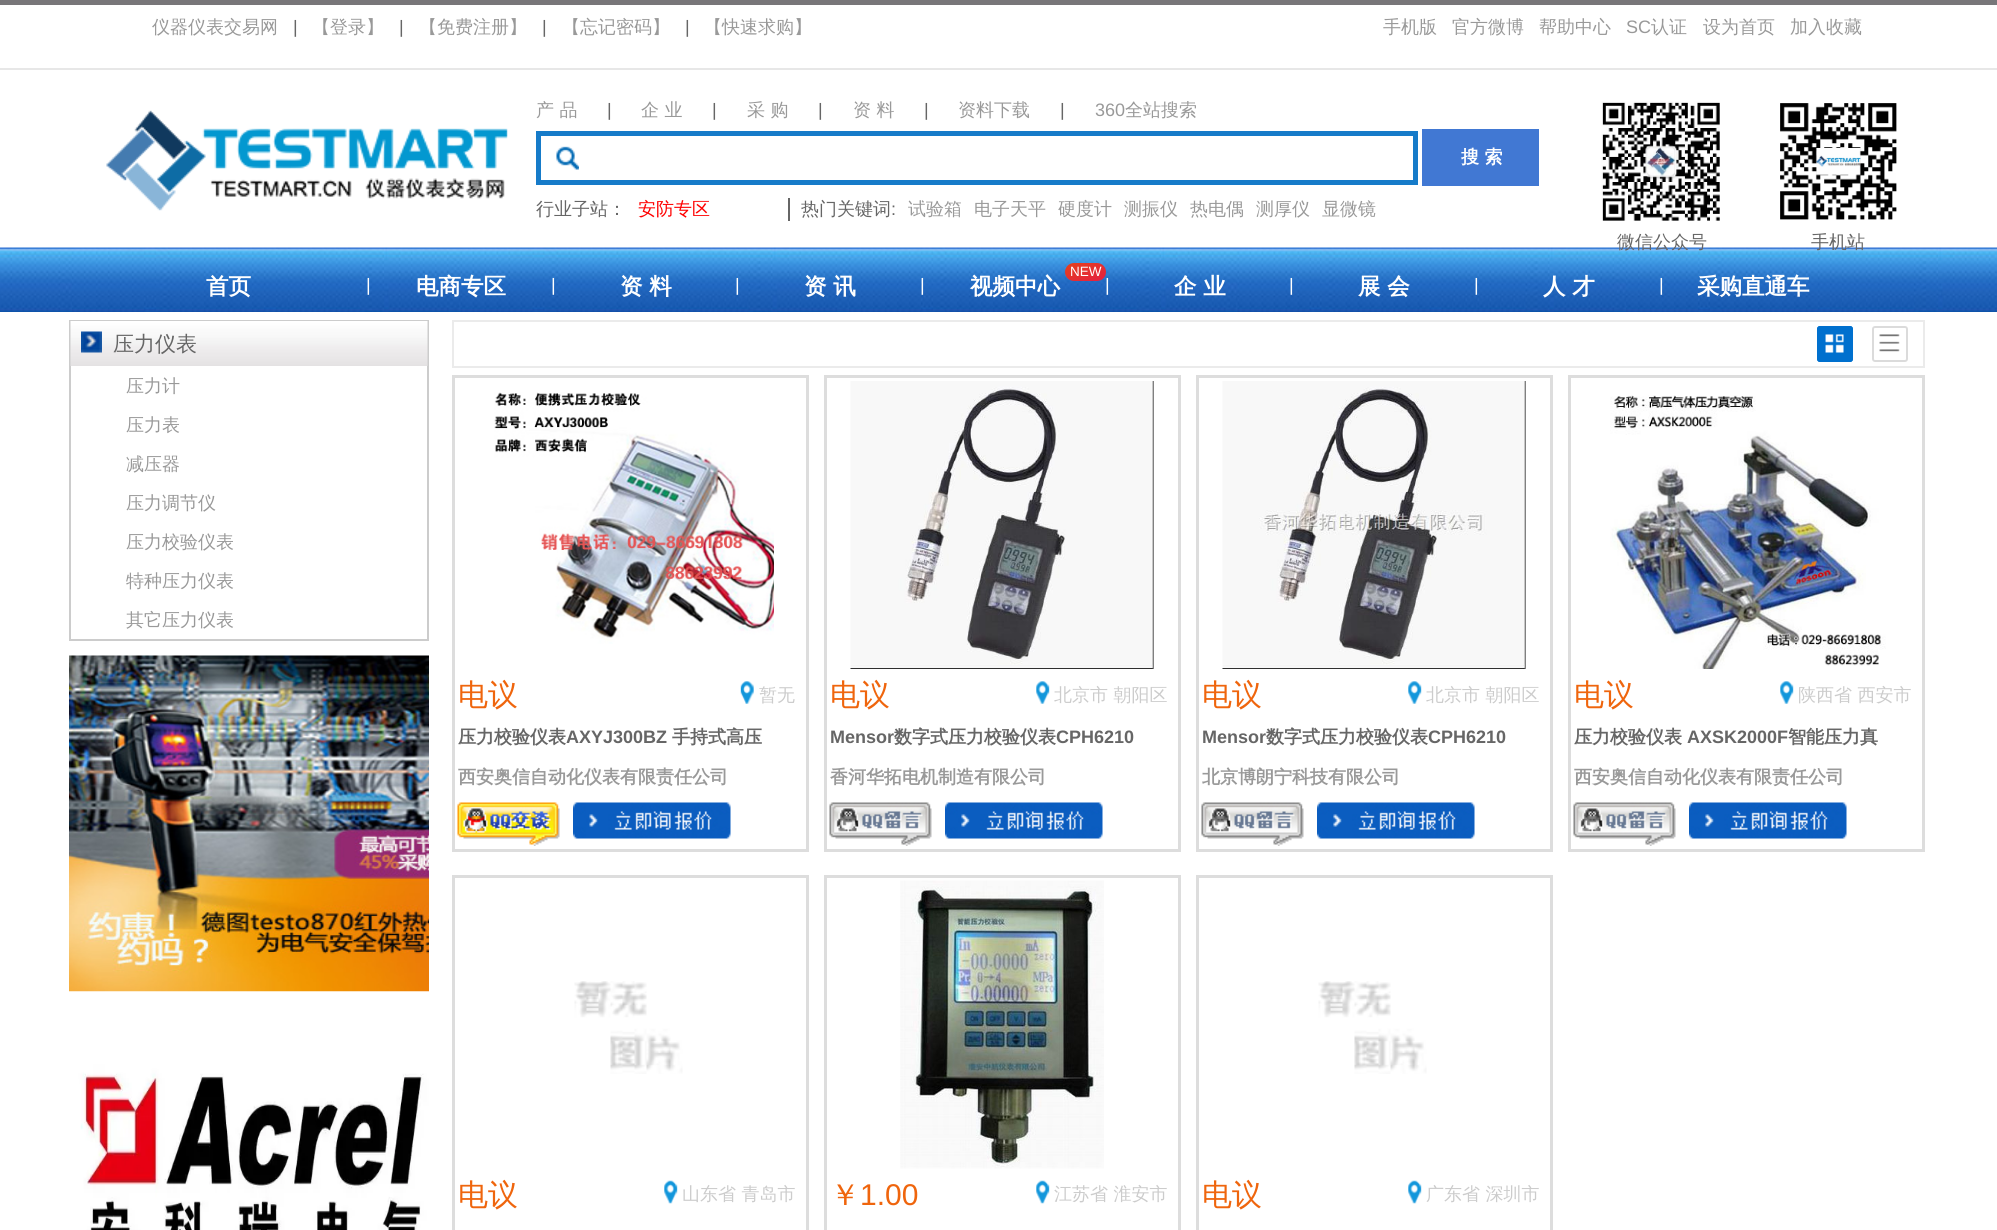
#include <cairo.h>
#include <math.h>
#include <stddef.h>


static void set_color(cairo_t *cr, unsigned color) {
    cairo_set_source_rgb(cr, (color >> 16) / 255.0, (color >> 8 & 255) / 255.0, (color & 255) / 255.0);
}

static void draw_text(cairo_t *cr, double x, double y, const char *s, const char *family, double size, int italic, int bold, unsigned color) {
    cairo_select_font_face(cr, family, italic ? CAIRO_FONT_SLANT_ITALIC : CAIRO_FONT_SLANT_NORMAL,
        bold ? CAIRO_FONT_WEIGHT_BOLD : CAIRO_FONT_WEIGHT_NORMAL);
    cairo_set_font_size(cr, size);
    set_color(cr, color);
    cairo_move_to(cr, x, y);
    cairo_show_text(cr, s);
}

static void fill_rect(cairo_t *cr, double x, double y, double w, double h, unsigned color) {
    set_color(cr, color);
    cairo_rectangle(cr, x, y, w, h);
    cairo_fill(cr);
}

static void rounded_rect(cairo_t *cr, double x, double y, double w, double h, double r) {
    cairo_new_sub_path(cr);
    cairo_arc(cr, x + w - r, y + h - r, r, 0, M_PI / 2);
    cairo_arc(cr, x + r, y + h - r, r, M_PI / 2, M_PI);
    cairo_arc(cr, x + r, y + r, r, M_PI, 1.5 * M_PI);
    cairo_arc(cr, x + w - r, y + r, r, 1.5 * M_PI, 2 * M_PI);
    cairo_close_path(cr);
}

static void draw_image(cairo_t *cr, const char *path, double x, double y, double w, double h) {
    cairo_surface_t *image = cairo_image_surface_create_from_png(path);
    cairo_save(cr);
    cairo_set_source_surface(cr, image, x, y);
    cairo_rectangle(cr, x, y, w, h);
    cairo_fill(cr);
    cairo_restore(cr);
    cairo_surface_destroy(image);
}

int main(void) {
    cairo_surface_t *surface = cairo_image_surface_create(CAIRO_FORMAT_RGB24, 1997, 1230);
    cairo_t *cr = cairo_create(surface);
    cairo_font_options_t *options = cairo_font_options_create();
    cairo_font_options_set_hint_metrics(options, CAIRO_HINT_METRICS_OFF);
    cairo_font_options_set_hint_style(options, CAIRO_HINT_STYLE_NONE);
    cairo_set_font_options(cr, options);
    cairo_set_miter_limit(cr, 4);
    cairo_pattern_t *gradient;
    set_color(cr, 0xFFFFFF);
    cairo_paint(cr);
    fill_rect(cr, 0, 0, 1997, 5, 0x787679);
    fill_rect(cr, 0, 68, 1997, 2, 0xE7E7E7);
    draw_text(cr, 152, 33, "仪器仪表交易网", "WenQuanYi Zen Hei Medium", 18, 0, 0, 0x999999);
    draw_text(cr, 293, 33, "|", "Liberation Sans", 18, 0, 0, 0x666666);
    draw_text(cr, 312, 33, "【登录】", "WenQuanYi Zen Hei Medium", 18, 0, 0, 0x999999);
    draw_text(cr, 399, 33, "|", "Liberation Sans", 18, 0, 0, 0x666666);
    draw_text(cr, 419, 33, "【免费注册】", "WenQuanYi Zen Hei Medium", 18, 0, 0, 0x999999);
    draw_text(cr, 542, 33, "|", "Liberation Sans", 18, 0, 0, 0x666666);
    draw_text(cr, 562, 33, "【忘记密码】", "WenQuanYi Zen Hei Medium", 18, 0, 0, 0x999999);
    draw_text(cr, 685, 33, "|", "Liberation Sans", 18, 0, 0, 0x666666);
    draw_text(cr, 704, 33, "【快速求购】", "WenQuanYi Zen Hei Medium", 18, 0, 0, 0x999999);
    draw_text(cr, 1383, 33, "手机版", "WenQuanYi Zen Hei Medium", 18, 0, 0, 0x999999);
    draw_text(cr, 1452, 33, "官方微博", "WenQuanYi Zen Hei Medium", 18, 0, 0, 0x999999);
    draw_text(cr, 1539, 33, "帮助中心", "WenQuanYi Zen Hei Medium", 18, 0, 0, 0x999999);
    draw_text(cr, 1626, 33, "SC", "Liberation Sans", 18, 0, 0, 0x999999);
    draw_text(cr, 1651, 33, "认证", "WenQuanYi Zen Hei Medium", 18, 0, 0, 0x999999);
    draw_text(cr, 1703, 33, "设为首页", "WenQuanYi Zen Hei Medium", 18, 0, 0, 0x999999);
    draw_text(cr, 1790, 33, "加入收藏", "WenQuanYi Zen Hei Medium", 18, 0, 0, 0x999999);
    draw_image(cr, "assets/img1.png", 106, 110, 402, 101);
    draw_text(cr, 536, 116, "产 品", "WenQuanYi Zen Hei Medium", 18, 0, 0, 0x999999);
    draw_text(cr, 607, 116, "|", "Liberation Sans", 18, 0, 0, 0x666666);
    draw_text(cr, 641, 116, "企 业", "WenQuanYi Zen Hei Medium", 18, 0, 0, 0x999999);
    draw_text(cr, 712, 116, "|", "Liberation Sans", 18, 0, 0, 0x666666);
    draw_text(cr, 747, 116, "采 购", "WenQuanYi Zen Hei Medium", 18, 0, 0, 0x999999);
    draw_text(cr, 818, 116, "|", "Liberation Sans", 18, 0, 0, 0x666666);
    draw_text(cr, 853, 116, "资 料", "WenQuanYi Zen Hei Medium", 18, 0, 0, 0x999999);
    draw_text(cr, 924, 116, "|", "Liberation Sans", 18, 0, 0, 0x666666);
    draw_text(cr, 958, 116, "资料下载", "WenQuanYi Zen Hei Medium", 18, 0, 0, 0x999999);
    draw_text(cr, 1060, 116, "|", "Liberation Sans", 18, 0, 0, 0x666666);
    draw_text(cr, 1095, 116, "360", "Liberation Sans", 18, 0, 0, 0x999999);
    draw_text(cr, 1125, 116, "全站搜索", "WenQuanYi Zen Hei Medium", 18, 0, 0, 0x999999);
    cairo_rectangle(cr, 538.5, 133.5, 877, 49);
    set_color(cr, 0x167BC9);
    cairo_set_line_width(cr, 5);
    cairo_stroke(cr);
    draw_image(cr, "assets/img2.png", 556, 146, 23, 24);
    fill_rect(cr, 1422, 129, 117, 57, 0x4178D3);
    draw_text(cr, 1461, 163, "搜 索", "WenQuanYi Zen Hei", 18, 0, 1, 0xFFFFFF);
    draw_text(cr, 536, 215, "行业子站：", "WenQuanYi Zen Hei Medium", 18, 0, 0, 0x666666);
    fill_rect(cr, 788, 198, 2, 23, 0x666666);
    draw_text(cr, 638, 215, "安防专区", "WenQuanYi Zen Hei Medium", 18, 0, 0, 0xFF0000);
    draw_text(cr, 801, 215, "热门关键词", "WenQuanYi Zen Hei Medium", 18, 0, 0, 0x666666);
    draw_text(cr, 891, 215, ":", "Liberation Sans", 18, 0, 0, 0x666666);
    draw_text(cr, 908, 215, "试验箱", "WenQuanYi Zen Hei Medium", 18, 0, 0, 0x999999);
    draw_text(cr, 974, 215, "电子天平", "WenQuanYi Zen Hei Medium", 18, 0, 0, 0x999999);
    draw_text(cr, 1058, 215, "硬度计", "WenQuanYi Zen Hei Medium", 18, 0, 0, 0x999999);
    draw_text(cr, 1124, 215, "测振仪", "WenQuanYi Zen Hei Medium", 18, 0, 0, 0x999999);
    draw_text(cr, 1190, 215, "热电偶", "WenQuanYi Zen Hei Medium", 18, 0, 0, 0x999999);
    draw_text(cr, 1256, 215, "测厚仪", "WenQuanYi Zen Hei Medium", 18, 0, 0, 0x999999);
    draw_text(cr, 1322, 215, "显微镜", "WenQuanYi Zen Hei Medium", 18, 0, 0, 0x999999);
    draw_image(cr, "assets/img3.png", 1601, 101, 119, 120);
    draw_image(cr, "assets/img5.png", 0, 247, 1997, 65);
    draw_text(cr, 1617, 248, "微信公众号", "WenQuanYi Zen Hei Medium", 18, 0, 0, 0x666666);
    draw_image(cr, "assets/img4.png", 1780, 103, 117, 117);
    draw_text(cr, 1811, 248, "手机站", "WenQuanYi Zen Hei Medium", 18, 0, 0, 0x666666);
    draw_text(cr, 206, 294, "首页", "WenQuanYi Zen Hei", 22.5, 0, 1, 0xFFFFFF);
    draw_text(cr, 366, 291, "|", "Liberation Sans", 18, 0, 0, 0xFFFFFF);
    draw_text(cr, 416, 294, "电商专区", "WenQuanYi Zen Hei", 22.5, 0, 1, 0xFFFFFF);
    draw_text(cr, 551, 291, "|", "Liberation Sans", 18, 0, 0, 0xFFFFFF);
    draw_text(cr, 620, 294, "资 料", "WenQuanYi Zen Hei", 22.5, 0, 1, 0xFFFFFF);
    draw_text(cr, 735, 291, "|", "Liberation Sans", 18, 0, 0, 0xFFFFFF);
    draw_text(cr, 804, 294, "资 讯", "WenQuanYi Zen Hei", 22.5, 0, 1, 0xFFFFFF);
    draw_text(cr, 920, 291, "|", "Liberation Sans", 18, 0, 0, 0xFFFFFF);
    gradient = cairo_pattern_create_linear(1079, 256, 1092, 287);
    cairo_pattern_add_color_stop_rgba(gradient, 0, 0.894, 0.259, 0.106, 1);
    cairo_pattern_add_color_stop_rgba(gradient, 1, 0.898, 0.118, 0.263, 1);
    cairo_set_source(cr, gradient);
    cairo_pattern_destroy(gradient);
    rounded_rect(cr, 1065, 263, 41, 18, 9);
    cairo_fill(cr);
    draw_text(cr, 1070, 276, "NEW", "Liberation Sans", 13.5, 0, 0, 0xFFFFFF);
    draw_text(cr, 970, 294, "视频中心", "WenQuanYi Zen Hei", 22.5, 0, 1, 0xFFFFFF);
    draw_text(cr, 1105, 291, "|", "Liberation Sans", 18, 0, 0, 0xFFFFFF);
    draw_text(cr, 1174, 294, "企 业", "WenQuanYi Zen Hei", 22.5, 0, 1, 0xFFFFFF);
    draw_text(cr, 1289, 291, "|", "Liberation Sans", 18, 0, 0, 0xFFFFFF);
    draw_text(cr, 1358, 294, "展 会", "WenQuanYi Zen Hei", 22.5, 0, 1, 0xFFFFFF);
    draw_text(cr, 1474, 291, "|", "Liberation Sans", 18, 0, 0, 0xFFFFFF);
    draw_text(cr, 1543, 294, "人 才", "WenQuanYi Zen Hei", 22.5, 0, 1, 0xFFFFFF);
    draw_text(cr, 1659, 291, "|", "Liberation Sans", 18, 0, 0, 0xFFFFFF);
    draw_text(cr, 1697, 294, "采购直通车", "WenQuanYi Zen Hei", 22.5, 0, 1, 0xFFFFFF);
    cairo_rectangle(cr, 70, 321, 358, 319);
    set_color(cr, 0xCCCCCC);
    cairo_set_line_width(cr, 2);
    cairo_stroke(cr);
    draw_image(cr, "assets/img6.png", 70, 321, 358, 45);
    draw_image(cr, "assets/img7.png", 81, 331, 21, 22);
    draw_text(cr, 113, 351, "压力仪表", "WenQuanYi Zen Hei Medium", 21, 0, 0, 0x666666);
    draw_text(cr, 126, 392, "压力计", "WenQuanYi Zen Hei Medium", 18, 0, 0, 0x999999);
    draw_text(cr, 126, 431, "压力表", "WenQuanYi Zen Hei Medium", 18, 0, 0, 0x999999);
    draw_text(cr, 126, 470, "减压器", "WenQuanYi Zen Hei Medium", 18, 0, 0, 0x999999);
    draw_text(cr, 126, 509, "压力调节仪", "WenQuanYi Zen Hei Medium", 18, 0, 0, 0x999999);
    draw_text(cr, 126, 548, "压力校验仪表", "WenQuanYi Zen Hei Medium", 18, 0, 0, 0x999999);
    draw_text(cr, 126, 587, "特种压力仪表", "WenQuanYi Zen Hei Medium", 18, 0, 0, 0x999999);
    draw_text(cr, 126, 626, "其它压力仪表", "WenQuanYi Zen Hei Medium", 18, 0, 0, 0x999999);
    draw_image(cr, "assets/img8.png", 69, 655, 360, 337);
    draw_image(cr, "assets/img9.png", 69, 991, 360, 239);
    cairo_rectangle(cr, 453, 321, 1471, 46);
    set_color(cr, 0xEBEBEB);
    cairo_stroke(cr);
    set_color(cr, 0x0070CE);
    rounded_rect(cr, 1817, 326, 36, 36, 3);
    cairo_fill(cr);
    draw_image(cr, "assets/img10.png", 1825, 334, 19, 19);
    rounded_rect(cr, 1818, 327, 34, 34, 2);
    cairo_stroke(cr);
    draw_image(cr, "assets/img11.png", 1879, 334, 21, 18);
    rounded_rect(cr, 1873, 327, 34, 34, 2);
    set_color(cr, 0xDBDBDB);
    cairo_stroke(cr);
    cairo_rectangle(cr, 453.5, 376.5, 354, 474);
    set_color(cr, 0xDDDDDD);
    cairo_set_line_width(cr, 3);
    cairo_stroke(cr);
    draw_image(cr, "assets/img12.png", 494, 392, 280, 252);
    draw_text(cr, 458, 705, "电议", "WenQuanYi Zen Hei Medium", 30, 0, 0, 0xEF650D);
    draw_image(cr, "assets/img13.png", 740, 681, 14, 23);
    draw_text(cr, 759, 701, "暂无", "WenQuanYi Zen Hei Medium", 18, 0, 0, 0xCCCCCC);
    draw_text(cr, 458, 743, "压力校验仪表", "WenQuanYi Zen Hei", 18, 0, 1, 0x666666);
    draw_text(cr, 566, 743, "AXYJ300BZ", "Liberation Sans", 18, 0, 1, 0x666666);
    draw_text(cr, 672, 743, "手持式高压", "WenQuanYi Zen Hei", 18, 0, 1, 0x666666);
    draw_text(cr, 458, 783, "西安奥信自动化仪表有限责任公司", "WenQuanYi Zen Hei", 18, 0, 1, 0x999999);
    draw_image(cr, "assets/img14.png", 457, 802, 103, 44);
    draw_image(cr, "assets/img15.png", 573, 802, 158, 37);
    cairo_rectangle(cr, 825.5, 376.5, 354, 474);
    set_color(cr, 0xDDDDDD);
    cairo_stroke(cr);
    draw_image(cr, "assets/img16.png", 850, 381, 304, 288);
    draw_text(cr, 830, 705, "电议", "WenQuanYi Zen Hei Medium", 30, 0, 0, 0xEF650D);
    draw_image(cr, "assets/img17.png", 1036, 681, 14, 23);
    draw_text(cr, 1054, 701, "北京市 朝阳区", "WenQuanYi Zen Hei Medium", 18, 0, 0, 0xCCCCCC);
    draw_text(cr, 830, 743, "Mensor", "Liberation Sans", 18, 0, 1, 0x666666);
    draw_text(cr, 894, 743, "数字式压力校验仪表", "WenQuanYi Zen Hei", 18, 0, 1, 0x666666);
    draw_text(cr, 1056, 743, "CPH6210", "Liberation Sans", 18, 0, 1, 0x666666);
    draw_text(cr, 830, 783, "香河华拓电机制造有限公司", "WenQuanYi Zen Hei", 18, 0, 1, 0x999999);
    draw_image(cr, "assets/img18.png", 829, 802, 103, 44);
    draw_image(cr, "assets/img19.png", 945, 802, 158, 37);
    cairo_rectangle(cr, 1197.5, 376.5, 354, 474);
    set_color(cr, 0xDDDDDD);
    cairo_stroke(cr);
    draw_image(cr, "assets/img20.png", 1222, 381, 304, 288);
    draw_text(cr, 1202, 705, "电议", "WenQuanYi Zen Hei Medium", 30, 0, 0, 0xEF650D);
    draw_image(cr, "assets/img21.png", 1408, 681, 14, 23);
    draw_text(cr, 1426, 701, "北京市 朝阳区", "WenQuanYi Zen Hei Medium", 18, 0, 0, 0xCCCCCC);
    draw_text(cr, 1202, 743, "Mensor", "Liberation Sans", 18, 0, 1, 0x666666);
    draw_text(cr, 1266, 743, "数字式压力校验仪表", "WenQuanYi Zen Hei", 18, 0, 1, 0x666666);
    draw_text(cr, 1428, 743, "CPH6210", "Liberation Sans", 18, 0, 1, 0x666666);
    draw_text(cr, 1202, 783, "北京博朗宁科技有限公司", "WenQuanYi Zen Hei", 18, 0, 1, 0x999999);
    draw_image(cr, "assets/img22.png", 1201, 802, 103, 44);
    draw_image(cr, "assets/img19.png", 1317, 802, 158, 37);
    cairo_rectangle(cr, 1569.5, 376.5, 354, 474);
    set_color(cr, 0xDDDDDD);
    cairo_stroke(cr);
    draw_image(cr, "assets/img23.png", 1610, 395, 276, 274);
    draw_text(cr, 1574, 705, "电议", "WenQuanYi Zen Hei Medium", 30, 0, 0, 0xEF650D);
    draw_image(cr, "assets/img17.png", 1780, 681, 14, 23);
    draw_text(cr, 1798, 701, "陕西省 西安市", "WenQuanYi Zen Hei Medium", 18, 0, 0, 0xCCCCCC);
    draw_text(cr, 1574, 743, "压力校验仪表", "WenQuanYi Zen Hei", 18, 0, 1, 0x666666);
    draw_text(cr, 1687, 743, "AXSK2000F", "Liberation Sans", 18, 0, 1, 0x666666);
    draw_text(cr, 1788, 743, "智能压力真", "WenQuanYi Zen Hei", 18, 0, 1, 0x666666);
    draw_text(cr, 1574, 783, "西安奥信自动化仪表有限责任公司", "WenQuanYi Zen Hei", 18, 0, 1, 0x999999);
    draw_image(cr, "assets/img18.png", 1573, 802, 103, 44);
    draw_image(cr, "assets/img19.png", 1689, 802, 158, 37);
    cairo_rectangle(cr, 453.5, 876.5, 354, 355);
    set_color(cr, 0xDDDDDD);
    cairo_stroke(cr);
    draw_image(cr, "assets/img24.png", 574, 981, 109, 93);
    draw_text(cr, 458, 1205, "电议", "WenQuanYi Zen Hei Medium", 30, 0, 0, 0xEF650D);
    draw_image(cr, "assets/img25.png", 664, 1180, 14, 24);
    draw_text(cr, 682, 1200, "山东省 青岛市", "WenQuanYi Zen Hei Medium", 18, 0, 0, 0xCCCCCC);
    cairo_rectangle(cr, 825.5, 876.5, 354, 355);
    set_color(cr, 0xDDDDDD);
    cairo_stroke(cr);
    draw_image(cr, "assets/img26.png", 900, 880, 204, 289);
    draw_text(cr, 830, 1205, "￥", "WenQuanYi Zen Hei Medium", 30, 0, 0, 0xEF650D);
    draw_text(cr, 860, 1205, "1.00", "Liberation Sans", 30, 0, 0, 0xEF650D);
    draw_image(cr, "assets/img25.png", 1036, 1180, 14, 24);
    draw_text(cr, 1054, 1200, "江苏省 淮安市", "WenQuanYi Zen Hei Medium", 18, 0, 0, 0xCCCCCC);
    cairo_rectangle(cr, 1197.5, 876.5, 354, 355);
    set_color(cr, 0xDDDDDD);
    cairo_stroke(cr);
    draw_image(cr, "assets/img27.png", 1318, 981, 109, 93);
    draw_text(cr, 1202, 1205, "电议", "WenQuanYi Zen Hei Medium", 30, 0, 0, 0xEF650D);
    draw_image(cr, "assets/img28.png", 1408, 1180, 14, 24);
    draw_text(cr, 1426, 1200, "广东省 深圳市", "WenQuanYi Zen Hei Medium", 18, 0, 0, 0xCCCCCC);
    cairo_surface_write_to_png(surface, "output.png");
    cairo_font_options_destroy(options);
    cairo_destroy(cr);
    cairo_surface_destroy(surface);
    return 0;
}
